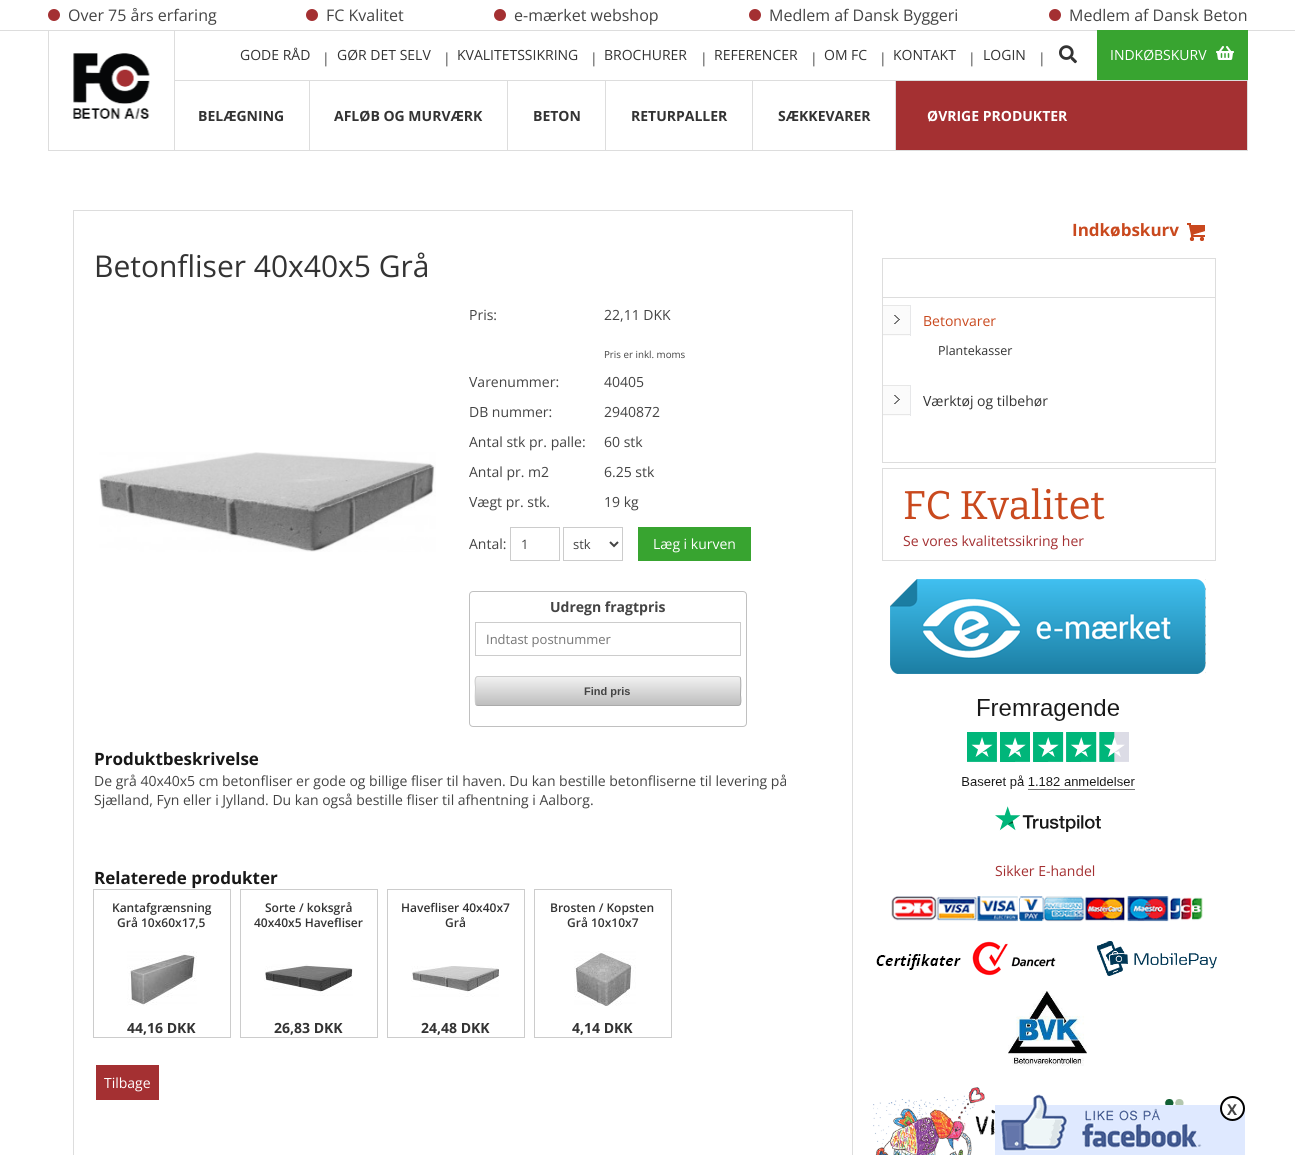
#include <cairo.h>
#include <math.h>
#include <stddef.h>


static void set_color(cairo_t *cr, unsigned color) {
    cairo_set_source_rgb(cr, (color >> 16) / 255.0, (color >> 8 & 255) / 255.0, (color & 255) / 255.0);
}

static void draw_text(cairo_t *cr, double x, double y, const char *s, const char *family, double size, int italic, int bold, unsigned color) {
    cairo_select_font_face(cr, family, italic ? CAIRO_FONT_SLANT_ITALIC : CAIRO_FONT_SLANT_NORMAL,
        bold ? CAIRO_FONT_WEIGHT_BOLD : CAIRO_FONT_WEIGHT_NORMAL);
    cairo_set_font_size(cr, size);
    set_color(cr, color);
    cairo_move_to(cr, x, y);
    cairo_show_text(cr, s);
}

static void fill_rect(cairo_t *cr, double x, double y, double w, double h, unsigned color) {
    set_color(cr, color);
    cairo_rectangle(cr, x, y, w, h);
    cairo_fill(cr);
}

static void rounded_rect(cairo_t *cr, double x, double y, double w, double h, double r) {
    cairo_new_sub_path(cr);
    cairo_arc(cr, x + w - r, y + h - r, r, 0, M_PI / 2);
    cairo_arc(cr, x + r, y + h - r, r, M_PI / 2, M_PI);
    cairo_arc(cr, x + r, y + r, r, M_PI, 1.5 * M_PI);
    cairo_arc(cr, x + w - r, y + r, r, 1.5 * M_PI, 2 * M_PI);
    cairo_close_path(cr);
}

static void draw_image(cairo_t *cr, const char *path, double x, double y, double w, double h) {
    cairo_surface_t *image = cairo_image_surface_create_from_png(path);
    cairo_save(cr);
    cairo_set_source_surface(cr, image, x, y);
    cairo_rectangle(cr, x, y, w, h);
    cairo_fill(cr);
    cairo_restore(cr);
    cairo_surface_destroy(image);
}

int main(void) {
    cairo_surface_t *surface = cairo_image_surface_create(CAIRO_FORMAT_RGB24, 1295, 1155);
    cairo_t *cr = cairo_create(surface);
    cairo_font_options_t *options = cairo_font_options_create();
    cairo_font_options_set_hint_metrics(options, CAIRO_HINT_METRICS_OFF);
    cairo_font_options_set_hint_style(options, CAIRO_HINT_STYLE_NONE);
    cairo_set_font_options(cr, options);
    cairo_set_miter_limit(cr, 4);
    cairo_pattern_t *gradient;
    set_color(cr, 0xFFFFFF);
    cairo_paint(cr);
    fill_rect(cr, 0, 30, 1295, 1, 0xDDDDDD);
    set_color(cr, 0xA43032);
    cairo_arc(cr, 54, 15, 6, 0, 2 * M_PI);
    cairo_fill(cr);
    draw_text(cr, 68, 21, "Over 75 års erfaring", "Open Sans", 16, 0, 0, 0x444444);
    set_color(cr, 0xA43032);
    cairo_new_path(cr);
    cairo_arc(cr, 312, 15, 6, 0, 2 * M_PI);
    cairo_fill(cr);
    draw_text(cr, 326, 21, "FC Kvalitet", "Open Sans", 16, 0, 0, 0x444444);
    set_color(cr, 0xA43032);
    cairo_new_path(cr);
    cairo_arc(cr, 500, 15, 6, 0, 2 * M_PI);
    cairo_fill(cr);
    draw_text(cr, 514, 21, "e-mærket webshop", "Open Sans", 16, 0, 0, 0x444444);
    set_color(cr, 0xA43032);
    cairo_new_path(cr);
    cairo_arc(cr, 755, 15, 6, 0, 2 * M_PI);
    cairo_fill(cr);
    draw_text(cr, 769, 21, "Medlem af Dansk Byggeri", "Open Sans", 16, 0, 0, 0x444444);
    set_color(cr, 0xA43032);
    cairo_new_path(cr);
    cairo_arc(cr, 1055, 15, 6, 0, 2 * M_PI);
    cairo_fill(cr);
    draw_text(cr, 1069, 21, "Medlem af Dansk Beton", "Open Sans", 16, 0, 0, 0x444444);
    fill_rect(cr, 174, 80, 1074, 1, 0xDDDDDD);
    fill_rect(cr, 1247, 80, 1, 71, 0xDDDDDD);
    fill_rect(cr, 174, 150, 1074, 1, 0xDDDDDD);
    fill_rect(cr, 174, 31, 1, 120, 0xDDDDDD);
    fill_rect(cr, 48, 150, 127, 1, 0xDDDDDD);
    fill_rect(cr, 48, 31, 1, 120, 0xDDDDDD);
    draw_image(cr, "assets/img1.png", 73, 53, 77, 66);
    draw_text(cr, 240, 60, "GODE RÅD", "Open Sans", 14, 0, 0, 0x333333);
    draw_text(cr, 322, 63, "|", "Open Sans", 14, 0, 0, 0x444444);
    draw_text(cr, 337, 60, "GØR DET SELV", "Open Sans", 14, 0, 0, 0x333333);
    draw_text(cr, 443, 63, "|", "Open Sans", 14, 0, 0, 0x444444);
    draw_text(cr, 457, 60, "KVALITETSSIKRING", "Open Sans", 14, 0, 0, 0x333333);
    draw_text(cr, 590, 63, "|", "Open Sans", 14, 0, 0, 0x444444);
    draw_text(cr, 604, 60, "BROCHURER", "Open Sans", 14, 0, 0, 0x333333);
    draw_text(cr, 700, 63, "|", "Open Sans", 14, 0, 0, 0x444444);
    draw_text(cr, 714, 60, "REFERENCER", "Open Sans", 14, 0, 0, 0x333333);
    draw_text(cr, 810, 63, "|", "Open Sans", 14, 0, 0, 0x444444);
    draw_text(cr, 824, 60, "OM FC", "Open Sans", 14, 0, 0, 0x333333);
    draw_text(cr, 879, 63, "|", "Open Sans", 14, 0, 0, 0x444444);
    draw_text(cr, 893, 60, "KONTAKT", "Open Sans", 14, 0, 0, 0x333333);
    draw_text(cr, 968, 63, "|", "Open Sans", 14, 0, 0, 0x444444);
    draw_text(cr, 983, 60, "LOGIN", "Open Sans", 14, 0, 0, 0x333333);
    draw_text(cr, 1038, 63, "|", "Open Sans", 14, 0, 0, 0x444444);
    draw_image(cr, "assets/img2.png", 1059, 45, 18, 19);
    fill_rect(cr, 1097, 30, 151, 50, 0x38A430);
    draw_text(cr, 1110, 60, "INDKØBSKURV", "Open Sans", 14, 0, 0, 0xFFFFFF);
    draw_image(cr, "assets/img3.png", 1216, 46, 18, 14);
    fill_rect(cr, 896, 81, 351, 69, 0xA43032);
    fill_rect(cr, 309, 81, 1, 69, 0xDDDDDD);
    draw_text(cr, 198, 121, "BELÆGNING", "Open Sans", 14, 0, 1, 0x333333);
    fill_rect(cr, 507, 81, 1, 69, 0xDDDDDD);
    draw_text(cr, 334, 121, "AFLØB OG MURVÆRK", "Open Sans", 14, 0, 1, 0x333333);
    fill_rect(cr, 605, 81, 1, 69, 0xDDDDDD);
    draw_text(cr, 533, 121, "BETON", "Open Sans", 14, 0, 1, 0x333333);
    fill_rect(cr, 752, 81, 1, 69, 0xDDDDDD);
    draw_text(cr, 631, 121, "RETURPALLER", "Open Sans", 14, 0, 1, 0x333333);
    fill_rect(cr, 895, 81, 1, 69, 0xDDDDDD);
    draw_text(cr, 778, 121, "SÆKKEVARER", "Open Sans", 14, 0, 1, 0x333333);
    draw_text(cr, 927, 121, "ØVRIGE PRODUKTER", "Open Sans", 14, 0, 1, 0xFFFFFF);
    cairo_rectangle(cr, 73.5, 210.5, 779, 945);
    set_color(cr, 0xDDDDDD);
    cairo_set_line_width(cr, 1);
    cairo_stroke(cr);
    draw_text(cr, 94, 277, "Betonfliser 40x40x5 Grå", "Open Sans", 30, 0, 0, 0x333333);
    draw_image(cr, "assets/img4.png", 99, 452, 337, 100);
    draw_text(cr, 469, 320, "Pris:", "Open Sans", 14, 0, 0, 0x444444);
    draw_text(cr, 604, 320, "22,11 DKK", "Open Sans", 14, 0, 0, 0x444444);
    draw_text(cr, 604, 358, "Pris er inkl. moms", "Open Sans", 9.75, 0, 0, 0x444444);
    draw_text(cr, 469, 387, "Varenummer:", "Open Sans", 14, 0, 0, 0x444444);
    draw_text(cr, 604, 387, "40405", "Open Sans", 14, 0, 0, 0x444444);
    draw_text(cr, 469, 417, "DB nummer:", "Open Sans", 14, 0, 0, 0x444444);
    draw_text(cr, 604, 417, "2940872", "Open Sans", 14, 0, 0, 0x444444);
    draw_text(cr, 469, 447, "Antal stk pr. palle:", "Open Sans", 14, 0, 0, 0x444444);
    draw_text(cr, 604, 447, "60 stk", "Open Sans", 14, 0, 0, 0x444444);
    draw_text(cr, 469, 477, "Antal pr. m2", "Open Sans", 14, 0, 0, 0x444444);
    draw_text(cr, 604, 477, "6.25 stk", "Open Sans", 14, 0, 0, 0x444444);
    draw_text(cr, 469, 507, "Vægt pr. stk.", "Open Sans", 14, 0, 0, 0x444444);
    draw_text(cr, 604, 507, "19 kg", "Open Sans", 14, 0, 0, 0x444444);
    draw_text(cr, 469, 549, "Antal:", "Open Sans", 14, 0, 0, 0x444444);
    cairo_rectangle(cr, 510.5, 527.5, 49, 33);
    set_color(cr, 0xCCCCCC);
    cairo_stroke(cr);
    draw_text(cr, 521, 549, "1", "Open Sans", 13, 0, 0, 0x444444);
    cairo_rectangle(cr, 563.5, 527.5, 59, 33);
    set_color(cr, 0xCCCCCC);
    cairo_stroke(cr);
    cairo_new_path(cr);
    cairo_move_to(cr, 610, 542);
    cairo_line_to(cr, 614, 546);
    cairo_line_to(cr, 618, 542);
    set_color(cr, 0x444444);
    cairo_set_line_width(cr, 2);
    cairo_stroke(cr);
    draw_text(cr, 573, 549, "stk", "Open Sans", 13, 0, 0, 0x444444);
    fill_rect(cr, 638, 527, 113, 34, 0x38A430);
    draw_text(cr, 653, 549, "Læg i kurven", "Open Sans", 14, 0, 0, 0xFFFFFF);
    rounded_rect(cr, 469.5, 591.5, 277, 135, 3.5);
    set_color(cr, 0xC0C0C0);
    cairo_set_line_width(cr, 1);
    cairo_stroke(cr);
    draw_text(cr, 550, 612, "Udregn fragtpris", "Open Sans", 14, 0, 1, 0x444444);
    cairo_rectangle(cr, 475.5, 622.5, 265, 33);
    set_color(cr, 0xCCCCCC);
    cairo_stroke(cr);
    draw_text(cr, 486, 644, "Indtast postnummer", "Open Sans", 13, 0, 0, 0x757575);
    set_color(cr, 0xEEEEEE);
    rounded_rect(cr, 475, 676, 266, 30, 3);
    cairo_fill(cr);
    cairo_save(cr);
    rounded_rect(cr, 475, 676, 266, 30, 3);
    cairo_clip(cr);
    gradient = cairo_pattern_create_linear(608, 677, 608, 705);
    cairo_pattern_add_color_stop_rgba(gradient, 0, 1, 1, 1, 0.2);
    cairo_pattern_add_color_stop_rgba(gradient, 1, 0, 0, 0, 0.2);
    cairo_set_source(cr, gradient);
    cairo_pattern_destroy(gradient);
    cairo_rectangle(cr, 475, 677, 266, 28);
    cairo_fill(cr);
    cairo_restore(cr);
    cairo_new_path(cr);
    cairo_move_to(cr, 740, 677);
    cairo_curve_to(cr, 741.5, 679, 740.5, 692, 740.5, 695);
    cairo_curve_to(cr, 740.5, 696.5, 742.5, 705.5, 738, 705.5);
    cairo_line_to(cr, 478, 705.5);
    cairo_line_to(cr, 476, 705);
    set_color(cr, 0xAAAAAA);
    cairo_stroke(cr);
    cairo_new_path(cr);
    cairo_move_to(cr, 476, 705);
    cairo_curve_to(cr, 474.5, 703, 475.5, 690, 475.5, 687);
    cairo_curve_to(cr, 475.5, 685.5, 473.5, 676.5, 478, 676.5);
    cairo_line_to(cr, 738, 676.5);
    cairo_line_to(cr, 740, 677);
    set_color(cr, 0xCCCCCC);
    cairo_stroke(cr);
    draw_text(cr, 584, 695, "Find pris", "Liberation Sans", 11, 0, 1, 0x444444);
    draw_text(cr, 94, 765, "Produktbeskrivelse", "Open Sans", 17, 0, 1, 0x181818);
    draw_text(cr, 94, 786, "De grå 40x40x5 cm betonfliser er gode og billige fliser til haven. Du kan bestille betonfliserne til levering på", "Open Sans", 14, 0, 0, 0x444444);
    draw_text(cr, 94, 805, "Sjælland, Fyn eller i Jylland. Du kan også bestille fliser til afhentning i Aalborg.", "Open Sans", 14, 0, 0, 0x444444);
    draw_text(cr, 94, 884, "Relaterede produkter", "Open Sans", 17, 0, 1, 0x181818);
    cairo_rectangle(cr, 93.5, 889.5, 137, 148);
    set_color(cr, 0xCCCCCC);
    cairo_stroke(cr);
    draw_text(cr, 112, 912, "Kantafgrænsning", "Open Sans SemiBold", 12, 0, 0, 0x333333);
    draw_text(cr, 117, 927, "Grå 10x60x17,5", "Open Sans SemiBold", 12, 0, 0, 0x333333);
    draw_image(cr, "assets/img5.png", 127, 951, 70, 55);
    draw_text(cr, 127, 1033, "44,16 DKK", "Open Sans", 14, 0, 1, 0x333333);
    cairo_rectangle(cr, 240.5, 889.5, 137, 148);
    set_color(cr, 0xCCCCCC);
    cairo_stroke(cr);
    draw_text(cr, 265, 912, "Sorte / koksgrå", "Open Sans SemiBold", 12, 0, 0, 0x333333);
    draw_text(cr, 254, 927, "40x40x5 Havefliser", "Open Sans SemiBold", 12, 0, 0, 0x333333);
    draw_image(cr, "assets/img6.png", 264, 964, 89, 32);
    draw_text(cr, 274, 1033, "26,83 DKK", "Open Sans", 14, 0, 1, 0x333333);
    cairo_rectangle(cr, 387.5, 889.5, 137, 148);
    set_color(cr, 0xCCCCCC);
    cairo_stroke(cr);
    draw_text(cr, 401, 912, "Havefliser 40x40x7", "Open Sans SemiBold", 12, 0, 0, 0x333333);
    draw_text(cr, 445, 927, "Grå", "Open Sans SemiBold", 12, 0, 0, 0x333333);
    draw_image(cr, "assets/img7.png", 411, 966, 88, 31);
    draw_text(cr, 421, 1033, "24,48 DKK", "Open Sans", 14, 0, 1, 0x333333);
    cairo_rectangle(cr, 534.5, 889.5, 137, 148);
    set_color(cr, 0xCCCCCC);
    cairo_stroke(cr);
    draw_text(cr, 550, 912, "Brosten / Kopsten", "Open Sans SemiBold", 12, 0, 0, 0x333333);
    draw_text(cr, 567, 927, "Grå 10x10x7", "Open Sans SemiBold", 12, 0, 0, 0x333333);
    draw_image(cr, "assets/img8.png", 574, 951, 62, 55);
    draw_text(cr, 572, 1033, "4,14 DKK", "Open Sans", 14, 0, 1, 0x333333);
    fill_rect(cr, 96, 1065, 63, 35, 0xA43032);
    draw_text(cr, 104, 1088, "Tilbage", "Open Sans", 14, 0, 0, 0xFFFFFF);
    cairo_rectangle(cr, 882.5, 258.5, 333, 39);
    set_color(cr, 0xDDDDDD);
    cairo_stroke(cr);
    draw_text(cr, 1072, 236, "Indkøbskurv", "Open Sans", 17, 0, 1, 0xC9491E);
    draw_image(cr, "assets/img9.png", 1187, 223, 18, 18);
    fill_rect(cr, 1215, 298, 1, 165, 0xDDDDDD);
    fill_rect(cr, 882, 462, 334, 1, 0xDDDDDD);
    fill_rect(cr, 882, 298, 1, 165, 0xDDDDDD);
    draw_image(cr, "assets/img10.png", 883, 305, 28, 31);
    draw_text(cr, 923, 326, "Betonvarer", "Open Sans", 14, 0, 0, 0xC9491E);
    draw_text(cr, 938, 355, "Plantekasser", "Open Sans", 12.5, 0, 0, 0x333333);
    draw_image(cr, "assets/img10.png", 883, 385, 28, 31);
    draw_text(cr, 923, 406, "Værktøj og tilbehør", "Open Sans", 14, 0, 0, 0x333333);
    cairo_rectangle(cr, 882.5, 468.5, 333, 92);
    set_color(cr, 0xDDDDDD);
    cairo_stroke(cr);
    draw_text(cr, 903, 519, "FC Kvalitet", "Bitter", 40, 0, 0, 0xC9491E);
    draw_text(cr, 903, 546, "Se vores kvalitetssikring her", "Open Sans", 14, 0, 0, 0xA43032);
    draw_image(cr, "assets/img11.png", 890, 579, 316, 95);
    draw_image(cr, "assets/img12.png", 962, 699, 173, 133);
    draw_text(cr, 995, 876, "Sikker E-handel", "Open Sans", 14, 0, 0, 0xA43032);
    draw_image(cr, "assets/img13.png", 891, 896, 312, 26);
    draw_image(cr, "assets/img14.png", 876, 941, 180, 35);
    draw_image(cr, "assets/img15.png", 1097, 941, 120, 35);
    draw_image(cr, "assets/img16.png", 1008, 991, 79, 75);
    draw_image(cr, "assets/img17.png", 873, 1087, 337, 68);
    draw_image(cr, "assets/img18.png", 995, 1094, 250, 60);
    set_color(cr, 0xFFFFFF);
    cairo_arc(cr, 1232.5, 1108.5, 11.5, 0, 2 * M_PI);
    cairo_fill_preserve(cr);
    set_color(cr, 0x000000);
    cairo_set_line_width(cr, 2);
    cairo_stroke(cr);
    draw_text(cr, 1227, 1115, "X", "Open Sans", 15, 0, 1, 0x444444);
    fill_rect(cr, 995, 1154, 250, 1, 0xDFE9FF);
    cairo_surface_write_to_png(surface, "output.png");
    cairo_font_options_destroy(options);
    cairo_destroy(cr);
    cairo_surface_destroy(surface);
    return 0;
}
